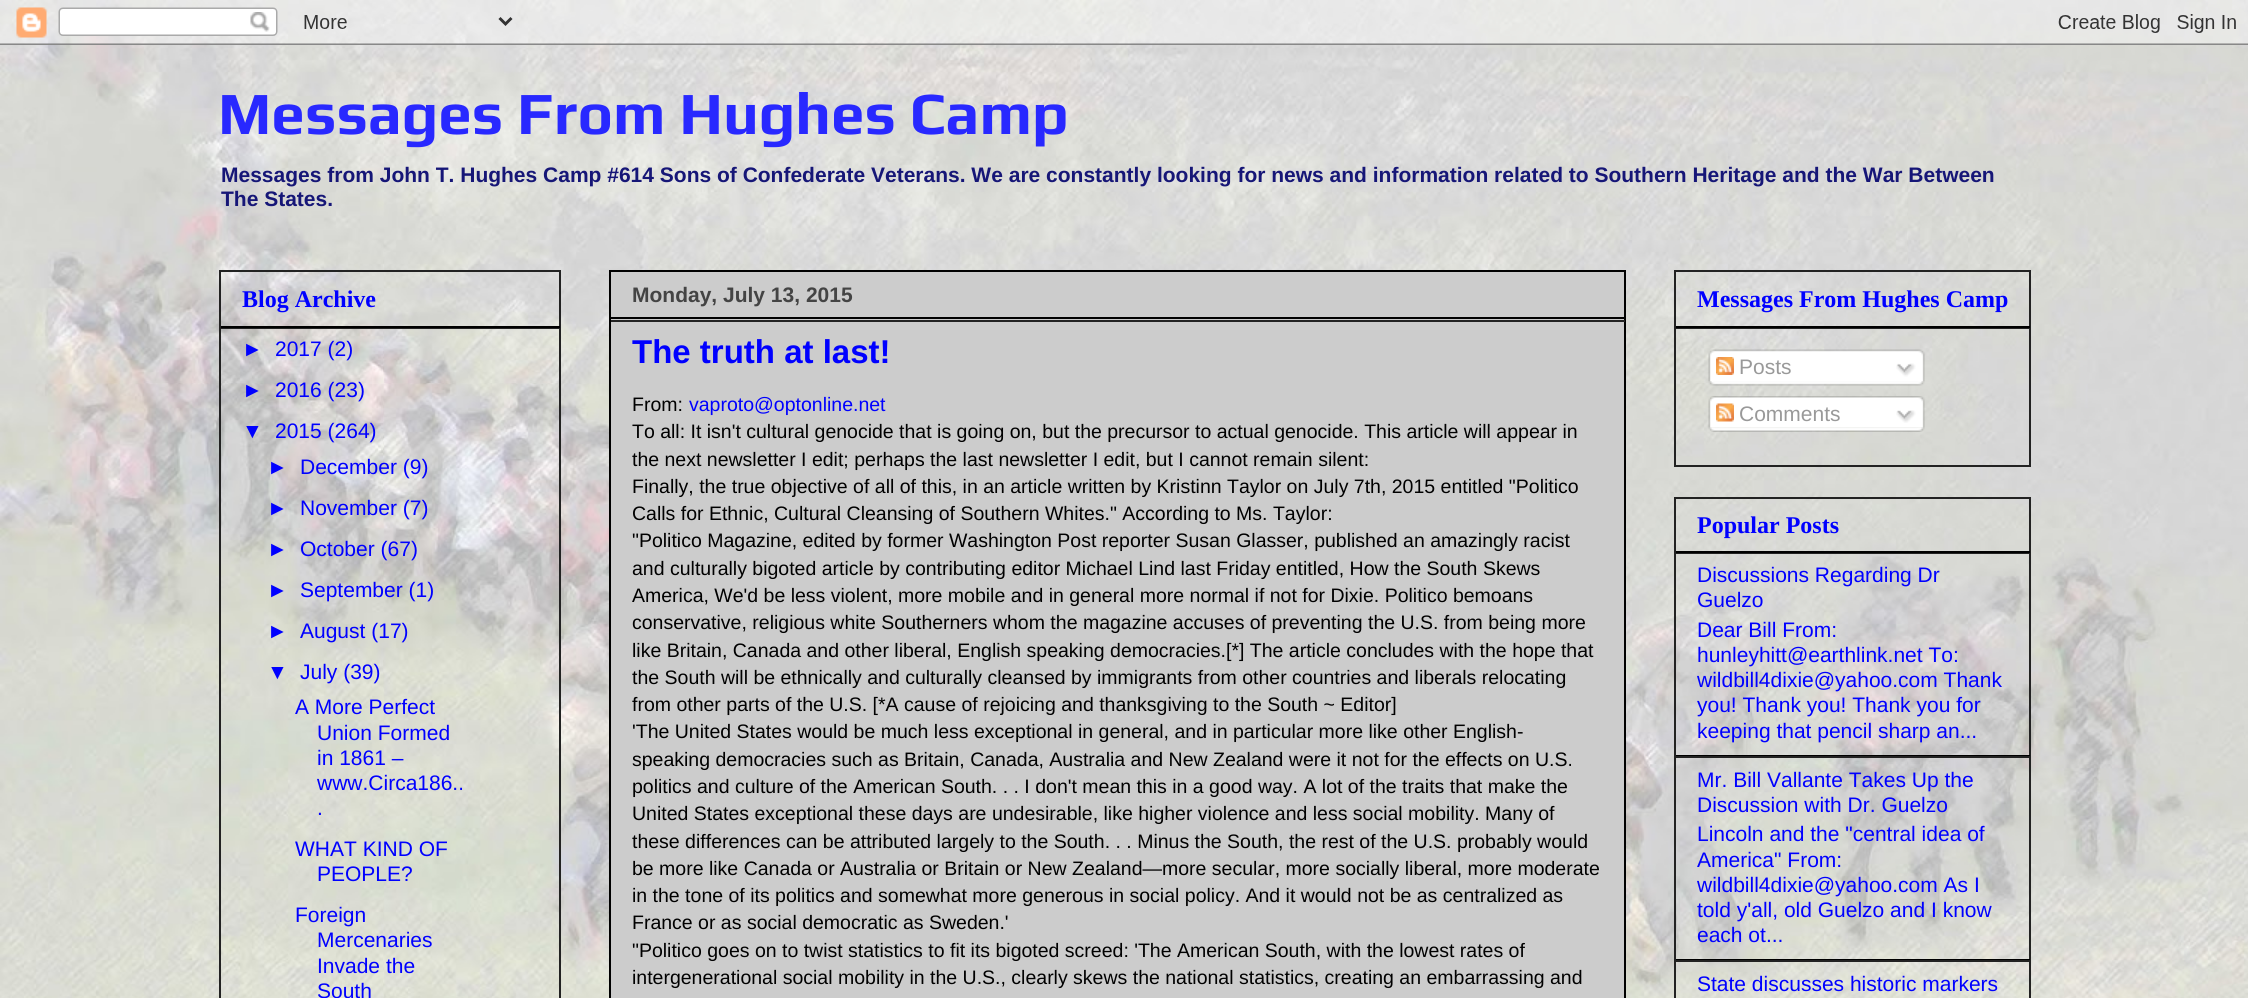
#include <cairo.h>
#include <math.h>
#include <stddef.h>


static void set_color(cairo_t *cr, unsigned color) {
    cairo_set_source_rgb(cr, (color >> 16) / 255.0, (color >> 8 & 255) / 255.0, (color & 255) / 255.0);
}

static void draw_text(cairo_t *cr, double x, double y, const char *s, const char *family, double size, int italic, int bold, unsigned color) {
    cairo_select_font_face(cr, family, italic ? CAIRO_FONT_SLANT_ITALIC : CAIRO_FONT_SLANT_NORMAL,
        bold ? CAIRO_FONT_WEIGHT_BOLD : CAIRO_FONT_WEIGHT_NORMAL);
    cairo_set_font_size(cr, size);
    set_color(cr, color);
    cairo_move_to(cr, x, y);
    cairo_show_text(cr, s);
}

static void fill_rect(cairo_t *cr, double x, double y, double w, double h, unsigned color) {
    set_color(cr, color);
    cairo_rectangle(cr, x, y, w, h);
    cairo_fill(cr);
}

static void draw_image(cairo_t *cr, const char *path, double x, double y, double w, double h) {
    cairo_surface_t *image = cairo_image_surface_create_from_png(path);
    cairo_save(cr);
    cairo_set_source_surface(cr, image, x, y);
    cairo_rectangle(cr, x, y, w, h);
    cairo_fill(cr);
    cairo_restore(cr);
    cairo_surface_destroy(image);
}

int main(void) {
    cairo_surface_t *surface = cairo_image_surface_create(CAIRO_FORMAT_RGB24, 2248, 998);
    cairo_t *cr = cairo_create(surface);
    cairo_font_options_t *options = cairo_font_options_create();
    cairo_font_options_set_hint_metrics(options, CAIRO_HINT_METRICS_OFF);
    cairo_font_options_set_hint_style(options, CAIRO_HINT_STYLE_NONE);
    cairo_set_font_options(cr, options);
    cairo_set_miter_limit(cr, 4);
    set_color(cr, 0xFFFFFF);
    cairo_paint(cr);
    draw_image(cr, "assets/img1.png", 0, 0, 2248, 998);
    draw_image(cr, "assets/img2.png", 0, 0, 2248, 45);
    draw_text(cr, 218, 134, "Messages From Hughes Camp", "Play", 60, 0, 1, 0x2828FF);
    draw_text(cr, 221, 182, "Messages from John T. Hughes Camp #614 Sons of Confederate Veterans. We are constantly looking for news and information related to Southern Heritage and the War Between", "Liberation Sans", 21, 0, 1, 0x161677);
    draw_text(cr, 221, 206, "The States.", "Liberation Sans", 21, 0, 1, 0x161677);
    cairo_rectangle(cr, 220, 271, 340, 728);
    set_color(cr, 0x222222);
    cairo_stroke(cr);
    fill_rect(cr, 221, 326, 339, 2, 0x000000);
    draw_text(cr, 242, 307, "Blog Archive", "Liberation Serif", 24, 0, 1, 0x0000FF);
    fill_rect(cr, 221, 328, 339, 1, 0x222222);
    draw_text(cr, 242, 356, "►", "Liberation Sans", 21, 0, 0, 0x0000FF);
    draw_text(cr, 275, 356, "2017 (2)", "Liberation Sans", 21, 0, 0, 0x0000FF);
    draw_text(cr, 242, 397, "►", "Liberation Sans", 21, 0, 0, 0x0000FF);
    draw_text(cr, 275, 397, "2016 (23)", "Liberation Sans", 21, 0, 0, 0x0000FF);
    draw_text(cr, 242, 438, "▼", "Liberation Sans", 21, 0, 0, 0x0000FF);
    draw_text(cr, 275, 438, "2015 (264)", "Liberation Sans", 21, 0, 0, 0x0000FF);
    draw_text(cr, 267, 474, "►", "Liberation Sans", 21, 0, 0, 0x0000FF);
    draw_text(cr, 300, 474, "December (9)", "Liberation Sans", 21, 0, 0, 0x0000FF);
    draw_text(cr, 267, 515, "►", "Liberation Sans", 21, 0, 0, 0x0000FF);
    draw_text(cr, 300, 515, "November (7)", "Liberation Sans", 21, 0, 0, 0x0000FF);
    draw_text(cr, 267, 556, "►", "Liberation Sans", 21, 0, 0, 0x0000FF);
    draw_text(cr, 300, 556, "October (67)", "Liberation Sans", 21, 0, 0, 0x0000FF);
    draw_text(cr, 267, 597, "►", "Liberation Sans", 21, 0, 0, 0x0000FF);
    draw_text(cr, 300, 597, "September (1)", "Liberation Sans", 21, 0, 0, 0x0000FF);
    draw_text(cr, 267, 638, "►", "Liberation Sans", 21, 0, 0, 0x0000FF);
    draw_text(cr, 300, 638, "August (17)", "Liberation Sans", 21, 0, 0, 0x0000FF);
    draw_text(cr, 267, 679, "▼", "Liberation Sans", 21, 0, 0, 0x0000FF);
    draw_text(cr, 300, 679, "July (39)", "Liberation Sans", 21, 0, 0, 0x0000FF);
    draw_text(cr, 295, 714, "A More Perfect", "Liberation Sans", 21, 0, 0, 0x0000FF);
    draw_text(cr, 317, 740, "Union Formed", "Liberation Sans", 21, 0, 0, 0x0000FF);
    draw_text(cr, 317, 765, "in 1861 –", "Liberation Sans", 21, 0, 0, 0x0000FF);
    draw_text(cr, 317, 790, "www.Circa186..", "Liberation Sans", 21, 0, 0, 0x0000FF);
    draw_text(cr, 317, 815, ".", "Liberation Sans", 21, 0, 0, 0x0000FF);
    draw_text(cr, 295, 856, "WHAT KIND OF", "Liberation Sans", 21, 0, 0, 0x0000FF);
    draw_text(cr, 317, 881, "PEOPLE?", "Liberation Sans", 21, 0, 0, 0x0000FF);
    draw_text(cr, 295, 922, "Foreign", "Liberation Sans", 21, 0, 0, 0x0000FF);
    draw_text(cr, 317, 947, "Mercenaries", "Liberation Sans", 21, 0, 0, 0x0000FF);
    draw_text(cr, 317, 973, "Invade the", "Liberation Sans", 21, 0, 0, 0x0000FF);
    draw_text(cr, 317, 998, "South", "Liberation Sans", 21, 0, 0, 0x0000FF);
    set_color(cr, 0xCCCCCC);
    cairo_rectangle(cr, 610, 271, 1015, 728);
    cairo_fill_preserve(cr);
    set_color(cr, 0x000000);
    cairo_stroke(cr);
    fill_rect(cr, 611, 317, 1014, 2, 0x000000);
    draw_text(cr, 632, 302, "Monday, July 13, 2015", "Liberation Sans", 21, 0, 1, 0x444444);
    fill_rect(cr, 611, 320, 1014, 2, 0x222222);
    draw_text(cr, 632, 363, "The truth at last!", "Liberation Sans", 33, 0, 1, 0x0000FF);
    draw_text(cr, 632, 411, "From:", "Liberation Sans", 19.5, 0, 0, 0x000000);
    draw_text(cr, 689, 411, "vaproto@optonline.net", "Liberation Sans", 19.5, 0, 0, 0x0000FF);
    draw_text(cr, 632, 438, "To all: It isn't cultural genocide that is going on, but the precursor to actual genocide. This article will appear in", "Liberation Sans", 19.5, 0, 0, 0x000000);
    draw_text(cr, 632, 466, "the next newsletter I edit; perhaps the last newsletter I edit, but I cannot remain silent:", "Liberation Sans", 19.5, 0, 0, 0x000000);
    draw_text(cr, 632, 493, "Finally, the true objective of all of this, in an article written by Kristinn Taylor on July 7th, 2015 entitled \"Politico", "Liberation Sans", 19.5, 0, 0, 0x000000);
    draw_text(cr, 632, 520, "Calls for Ethnic, Cultural Cleansing of Southern Whites.\" According to Ms. Taylor:", "Liberation Sans", 19.5, 0, 0, 0x000000);
    draw_text(cr, 632, 547, "\"Politico Magazine, edited by former Washington Post reporter Susan Glasser, published an amazingly racist", "Liberation Sans", 19.5, 0, 0, 0x000000);
    draw_text(cr, 632, 575, "and culturally bigoted article by contributing editor Michael Lind last Friday entitled, How the South Skews", "Liberation Sans", 19.5, 0, 0, 0x000000);
    draw_text(cr, 632, 602, "America, We'd be less violent, more mobile and in general more normal if not for Dixie. Politico bemoans", "Liberation Sans", 19.5, 0, 0, 0x000000);
    draw_text(cr, 632, 629, "conservative, religious white Southerners whom the magazine accuses of preventing the U.S. from being more", "Liberation Sans", 19.5, 0, 0, 0x000000);
    draw_text(cr, 632, 657, "like Britain, Canada and other liberal, English speaking democracies.[*] The article concludes with the hope that", "Liberation Sans", 19.5, 0, 0, 0x000000);
    draw_text(cr, 632, 684, "the South will be ethnically and culturally cleansed by immigrants from other countries and liberals relocating", "Liberation Sans", 19.5, 0, 0, 0x000000);
    draw_text(cr, 632, 711, "from other parts of the U.S. [*A cause of rejoicing and thanksgiving to the South ~ Editor]", "Liberation Sans", 19.5, 0, 0, 0x000000);
    draw_text(cr, 632, 738, "'The United States would be much less exceptional in general, and in particular more like other English-", "Liberation Sans", 19.5, 0, 0, 0x000000);
    draw_text(cr, 632, 766, "speaking democracies such as Britain, Canada, Australia and New Zealand were it not for the effects on U.S.", "Liberation Sans", 19.5, 0, 0, 0x000000);
    draw_text(cr, 632, 793, "politics and culture of the American South. . . I don't mean this in a good way. A lot of the traits that make the", "Liberation Sans", 19.5, 0, 0, 0x000000);
    draw_text(cr, 632, 820, "United States exceptional these days are undesirable, like higher violence and less social mobility. Many of", "Liberation Sans", 19.5, 0, 0, 0x000000);
    draw_text(cr, 632, 848, "these differences can be attributed largely to the South. . . Minus the South, the rest of the U.S. probably would", "Liberation Sans", 19.5, 0, 0, 0x000000);
    draw_text(cr, 632, 875, "be more like Canada or Australia or Britain or New Zealand—more secular, more socially liberal, more moderate", "Liberation Sans", 19.5, 0, 0, 0x000000);
    draw_text(cr, 632, 902, "in the tone of its politics and somewhat more generous in social policy. And it would not be as centralized as", "Liberation Sans", 19.5, 0, 0, 0x000000);
    draw_text(cr, 632, 929, "France or as social democratic as Sweden.'", "Liberation Sans", 19.5, 0, 0, 0x000000);
    draw_text(cr, 632, 957, "\"Politico goes on to twist statistics to fit its bigoted screed: 'The American South, with the lowest rates of", "Liberation Sans", 19.5, 0, 0, 0x000000);
    draw_text(cr, 632, 984, "intergenerational social mobility in the U.S., clearly skews the national statistics, creating an embarrassing and", "Liberation Sans", 19.5, 0, 0, 0x000000);
    cairo_rectangle(cr, 1675, 271, 355, 195);
    set_color(cr, 0x222222);
    cairo_stroke(cr);
    fill_rect(cr, 1676, 326, 354, 2, 0x000000);
    draw_text(cr, 1697, 307, "Messages From Hughes Camp", "Liberation Serif", 24, 0, 1, 0x0000FF);
    fill_rect(cr, 1676, 328, 354, 1, 0x222222);
    draw_image(cr, "assets/img3.png", 1708, 349, 217, 32);
    draw_image(cr, "assets/img4.png", 1716, 357, 18, 18);
    draw_text(cr, 1739, 374, "Posts", "Liberation Sans", 21, 0, 0, 0x999999);
    draw_image(cr, "assets/img5.png", 1896, 363, 20, 14);
    draw_image(cr, "assets/img6.png", 1708, 381, 217, 5);
    draw_image(cr, "assets/img7.png", 1708, 396, 217, 32);
    draw_image(cr, "assets/img8.png", 1716, 403, 18, 19);
    draw_text(cr, 1739, 421, "Comments", "Liberation Sans", 21, 0, 0, 0x999999);
    draw_image(cr, "assets/img9.png", 1896, 410, 20, 13);
    draw_image(cr, "assets/img10.png", 1708, 427, 217, 5);
    cairo_rectangle(cr, 1675, 498, 355, 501);
    set_color(cr, 0x222222);
    cairo_stroke(cr);
    fill_rect(cr, 1676, 551, 354, 2, 0x000000);
    draw_text(cr, 1697, 533, "Popular Posts", "Liberation Serif", 24, 0, 1, 0x0000FF);
    fill_rect(cr, 1676, 553, 354, 1, 0x222222);
    fill_rect(cr, 1676, 755, 354, 1, 0x000000);
    draw_text(cr, 1697, 582, "Discussions Regarding Dr", "Liberation Sans", 21, 0, 0, 0x0000FF);
    draw_text(cr, 1697, 607, "Guelzo", "Liberation Sans", 21, 0, 0, 0x0000FF);
    draw_text(cr, 1697, 637, "Dear Bill From:", "Liberation Sans", 21, 0, 0, 0x0000FF);
    draw_text(cr, 1697, 662, "hunleyhitt@earthlink.net To:", "Liberation Sans", 21, 0, 0, 0x0000FF);
    draw_text(cr, 1697, 687, "wildbill4dixie@yahoo.com Thank", "Liberation Sans", 21, 0, 0, 0x0000FF);
    draw_text(cr, 1697, 712, "you! Thank you! Thank you for", "Liberation Sans", 21, 0, 0, 0x0000FF);
    draw_text(cr, 1697, 738, "keeping that pencil sharp an...", "Liberation Sans", 21, 0, 0, 0x0000FF);
    fill_rect(cr, 1676, 756, 354, 2, 0x222222);
    fill_rect(cr, 1676, 959, 354, 1, 0x000000);
    draw_text(cr, 1697, 787, "Mr. Bill Vallante Takes Up the", "Liberation Sans", 21, 0, 0, 0x0000FF);
    draw_text(cr, 1697, 812, "Discussion with Dr. Guelzo", "Liberation Sans", 21, 0, 0, 0x0000FF);
    draw_text(cr, 1697, 841, "Lincoln and the \"central idea of", "Liberation Sans", 21, 0, 0, 0x0000FF);
    draw_text(cr, 1697, 867, "America\" From:", "Liberation Sans", 21, 0, 0, 0x0000FF);
    draw_text(cr, 1697, 892, "wildbill4dixie@yahoo.com As I", "Liberation Sans", 21, 0, 0, 0x0000FF);
    draw_text(cr, 1697, 917, "told y'all, old Guelzo and I know", "Liberation Sans", 21, 0, 0, 0x0000FF);
    draw_text(cr, 1697, 942, "each ot...", "Liberation Sans", 21, 0, 0, 0x0000FF);
    fill_rect(cr, 1676, 960, 354, 2, 0x222222);
    draw_text(cr, 1697, 991, "State discusses historic markers", "Liberation Sans", 21, 0, 0, 0x0000FF);
    cairo_surface_write_to_png(surface, "output.png");
    cairo_font_options_destroy(options);
    cairo_destroy(cr);
    cairo_surface_destroy(surface);
    return 0;
}
